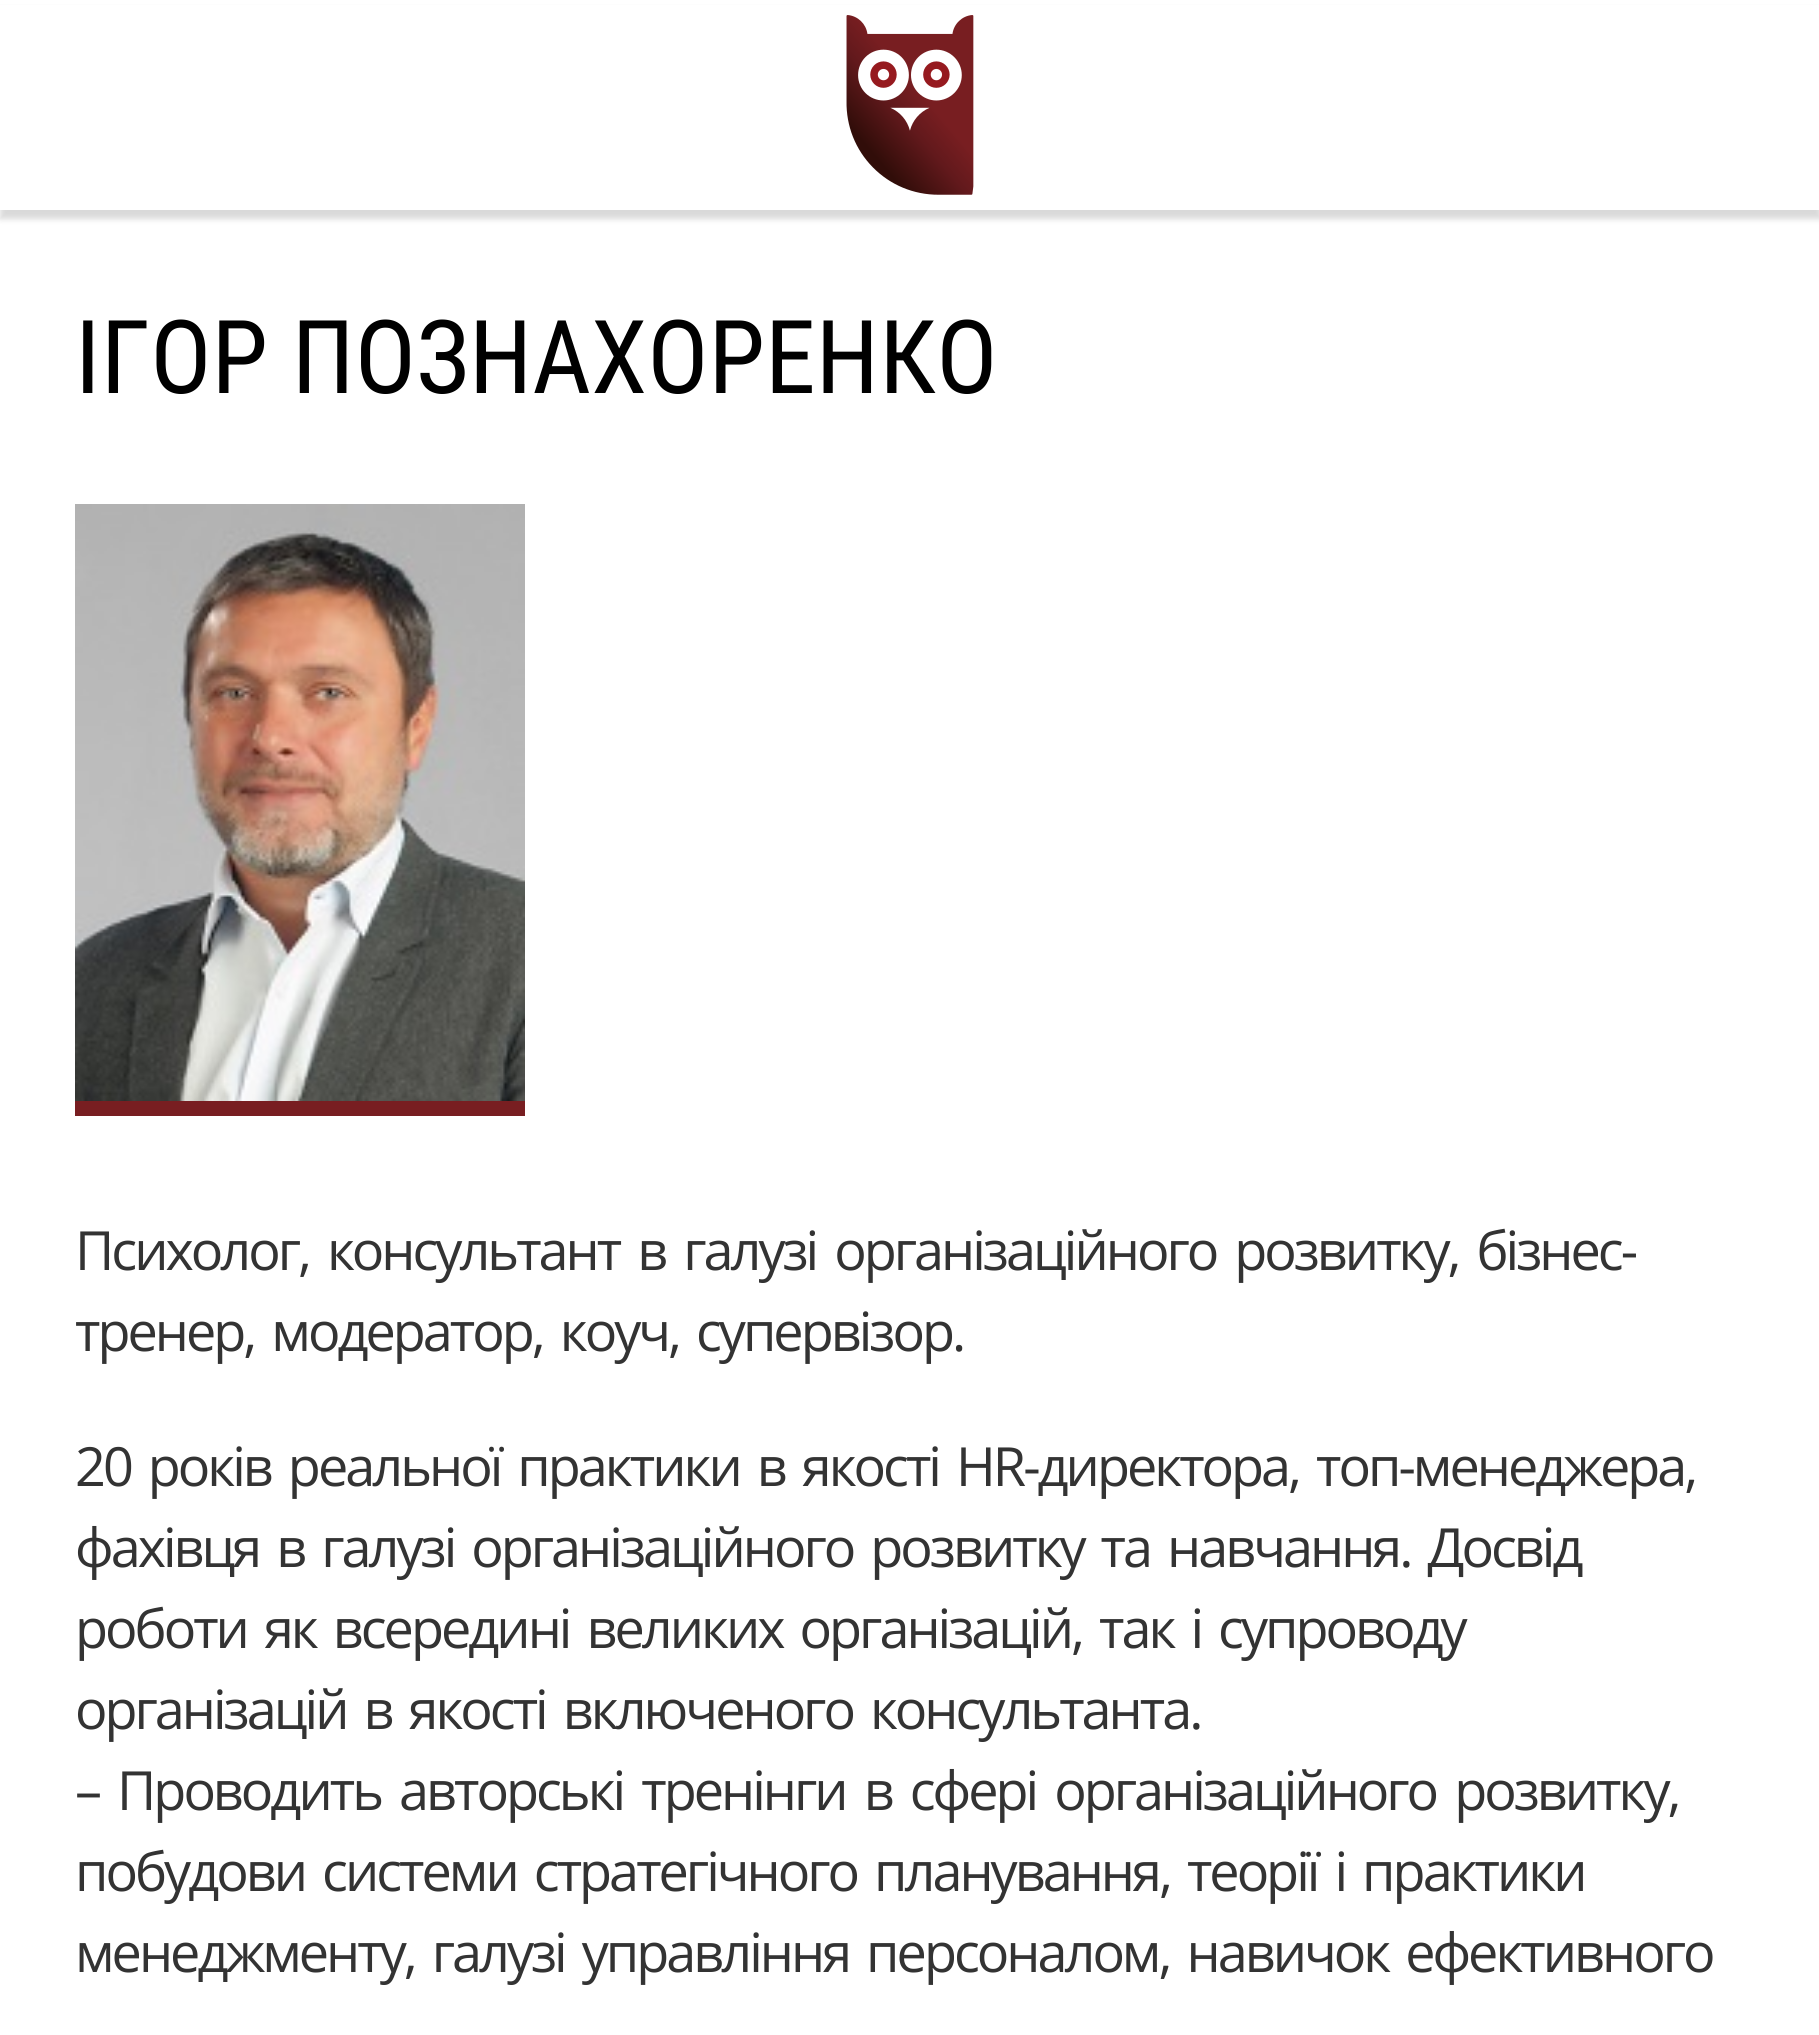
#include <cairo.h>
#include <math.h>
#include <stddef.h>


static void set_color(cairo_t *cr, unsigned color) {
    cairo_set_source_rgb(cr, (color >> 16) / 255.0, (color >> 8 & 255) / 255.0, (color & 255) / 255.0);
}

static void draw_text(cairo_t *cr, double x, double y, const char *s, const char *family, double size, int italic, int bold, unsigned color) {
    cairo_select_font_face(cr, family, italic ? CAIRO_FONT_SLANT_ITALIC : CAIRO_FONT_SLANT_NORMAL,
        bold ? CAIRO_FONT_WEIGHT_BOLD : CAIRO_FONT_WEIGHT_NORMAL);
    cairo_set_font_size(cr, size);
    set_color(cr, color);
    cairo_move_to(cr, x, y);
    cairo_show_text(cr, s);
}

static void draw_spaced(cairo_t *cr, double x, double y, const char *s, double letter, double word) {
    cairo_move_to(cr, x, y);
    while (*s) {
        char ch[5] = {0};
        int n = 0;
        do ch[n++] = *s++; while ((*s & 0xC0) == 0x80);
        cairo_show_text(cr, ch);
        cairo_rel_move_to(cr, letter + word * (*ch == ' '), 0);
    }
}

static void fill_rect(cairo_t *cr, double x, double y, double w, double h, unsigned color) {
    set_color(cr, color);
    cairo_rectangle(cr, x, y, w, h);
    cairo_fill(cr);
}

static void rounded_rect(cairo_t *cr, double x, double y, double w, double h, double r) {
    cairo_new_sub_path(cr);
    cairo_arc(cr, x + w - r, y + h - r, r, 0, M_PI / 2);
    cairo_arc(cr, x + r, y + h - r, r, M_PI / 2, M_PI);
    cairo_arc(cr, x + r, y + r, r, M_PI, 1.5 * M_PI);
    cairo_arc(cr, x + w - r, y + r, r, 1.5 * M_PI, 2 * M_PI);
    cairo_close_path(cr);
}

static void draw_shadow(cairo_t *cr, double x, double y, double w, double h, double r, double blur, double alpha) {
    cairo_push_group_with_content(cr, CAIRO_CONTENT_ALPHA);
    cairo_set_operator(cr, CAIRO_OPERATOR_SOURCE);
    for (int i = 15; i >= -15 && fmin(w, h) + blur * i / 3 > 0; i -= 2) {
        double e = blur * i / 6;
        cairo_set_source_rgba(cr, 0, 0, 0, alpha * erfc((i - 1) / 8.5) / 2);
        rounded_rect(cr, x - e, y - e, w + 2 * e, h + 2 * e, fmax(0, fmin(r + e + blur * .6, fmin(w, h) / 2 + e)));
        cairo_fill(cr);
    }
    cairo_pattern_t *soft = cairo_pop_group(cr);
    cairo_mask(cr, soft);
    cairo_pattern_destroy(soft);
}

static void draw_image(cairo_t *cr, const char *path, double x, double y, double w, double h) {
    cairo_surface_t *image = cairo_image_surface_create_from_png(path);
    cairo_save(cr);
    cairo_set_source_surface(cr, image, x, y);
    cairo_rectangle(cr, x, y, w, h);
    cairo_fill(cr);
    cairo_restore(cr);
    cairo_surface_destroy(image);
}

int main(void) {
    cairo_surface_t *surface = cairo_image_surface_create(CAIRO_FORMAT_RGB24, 1819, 2035);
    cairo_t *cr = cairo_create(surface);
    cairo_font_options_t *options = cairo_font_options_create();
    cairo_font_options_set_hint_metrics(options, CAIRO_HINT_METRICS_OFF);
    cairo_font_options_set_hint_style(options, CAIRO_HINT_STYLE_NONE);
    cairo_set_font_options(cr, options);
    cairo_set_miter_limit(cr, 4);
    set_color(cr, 0xFFFFFF);
    cairo_paint(cr);
    set_color(cr, 0x000000);
    draw_shadow(cr, 0, 9, 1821, 210, 0, 3, 0.15);
    fill_rect(cr, 0, 5, 1819, 205, 0xFFFFFF);
    draw_image(cr, "assets/img1.png", 846, 15, 128, 180);
    draw_text(cr, 75, 393, "ІГОР ПОЗНАХОРЕНКО", "Roboto Condensed", 102, 0, 0, 0x000000);
    draw_image(cr, "assets/img2.png", 75, 504, 450, 597);
    fill_rect(cr, 75, 1101, 450, 15, 0x781E21);
    cairo_select_font_face(cr, "Open Sans", CAIRO_FONT_SLANT_NORMAL, CAIRO_FONT_WEIGHT_NORMAL);
    cairo_set_font_size(cr, 54);
    set_color(cr, 0x333333);
    draw_spaced(cr, 75, 1270, "Психолог, консультант в галузі організаційного розвитку, бізнес-", -3, 7);
    draw_spaced(cr, 75, 1351, "тренер, модератор, коуч, супервізор.", -3, 6);
    draw_spaced(cr, 75, 1486, "20 років реальної практики в якості HR-директора, топ-менеджера,", -3, 6);
    draw_spaced(cr, 75, 1567, "фахівця в галузі організаційного розвитку та навчання. Досвід", -3, 6);
    draw_spaced(cr, 75, 1648, "роботи як всередині великих організацій, так і супроводу", -3, 6);
    draw_spaced(cr, 75, 1729, "організацій в якості включеного консультанта.", -3, 6);
    draw_spaced(cr, 75, 1810, "– Проводить авторські тренінги в сфері організаційного розвитку,", -3, 7);
    draw_spaced(cr, 75, 1891, "побудови системи стратегічного планування, теорії і практики", -3, 6);
    draw_spaced(cr, 75, 1972, "менеджменту, галузі управління персоналом, навичок ефективного", -3, 6);
    cairo_surface_write_to_png(surface, "output.png");
    cairo_font_options_destroy(options);
    cairo_destroy(cr);
    cairo_surface_destroy(surface);
    return 0;
}
